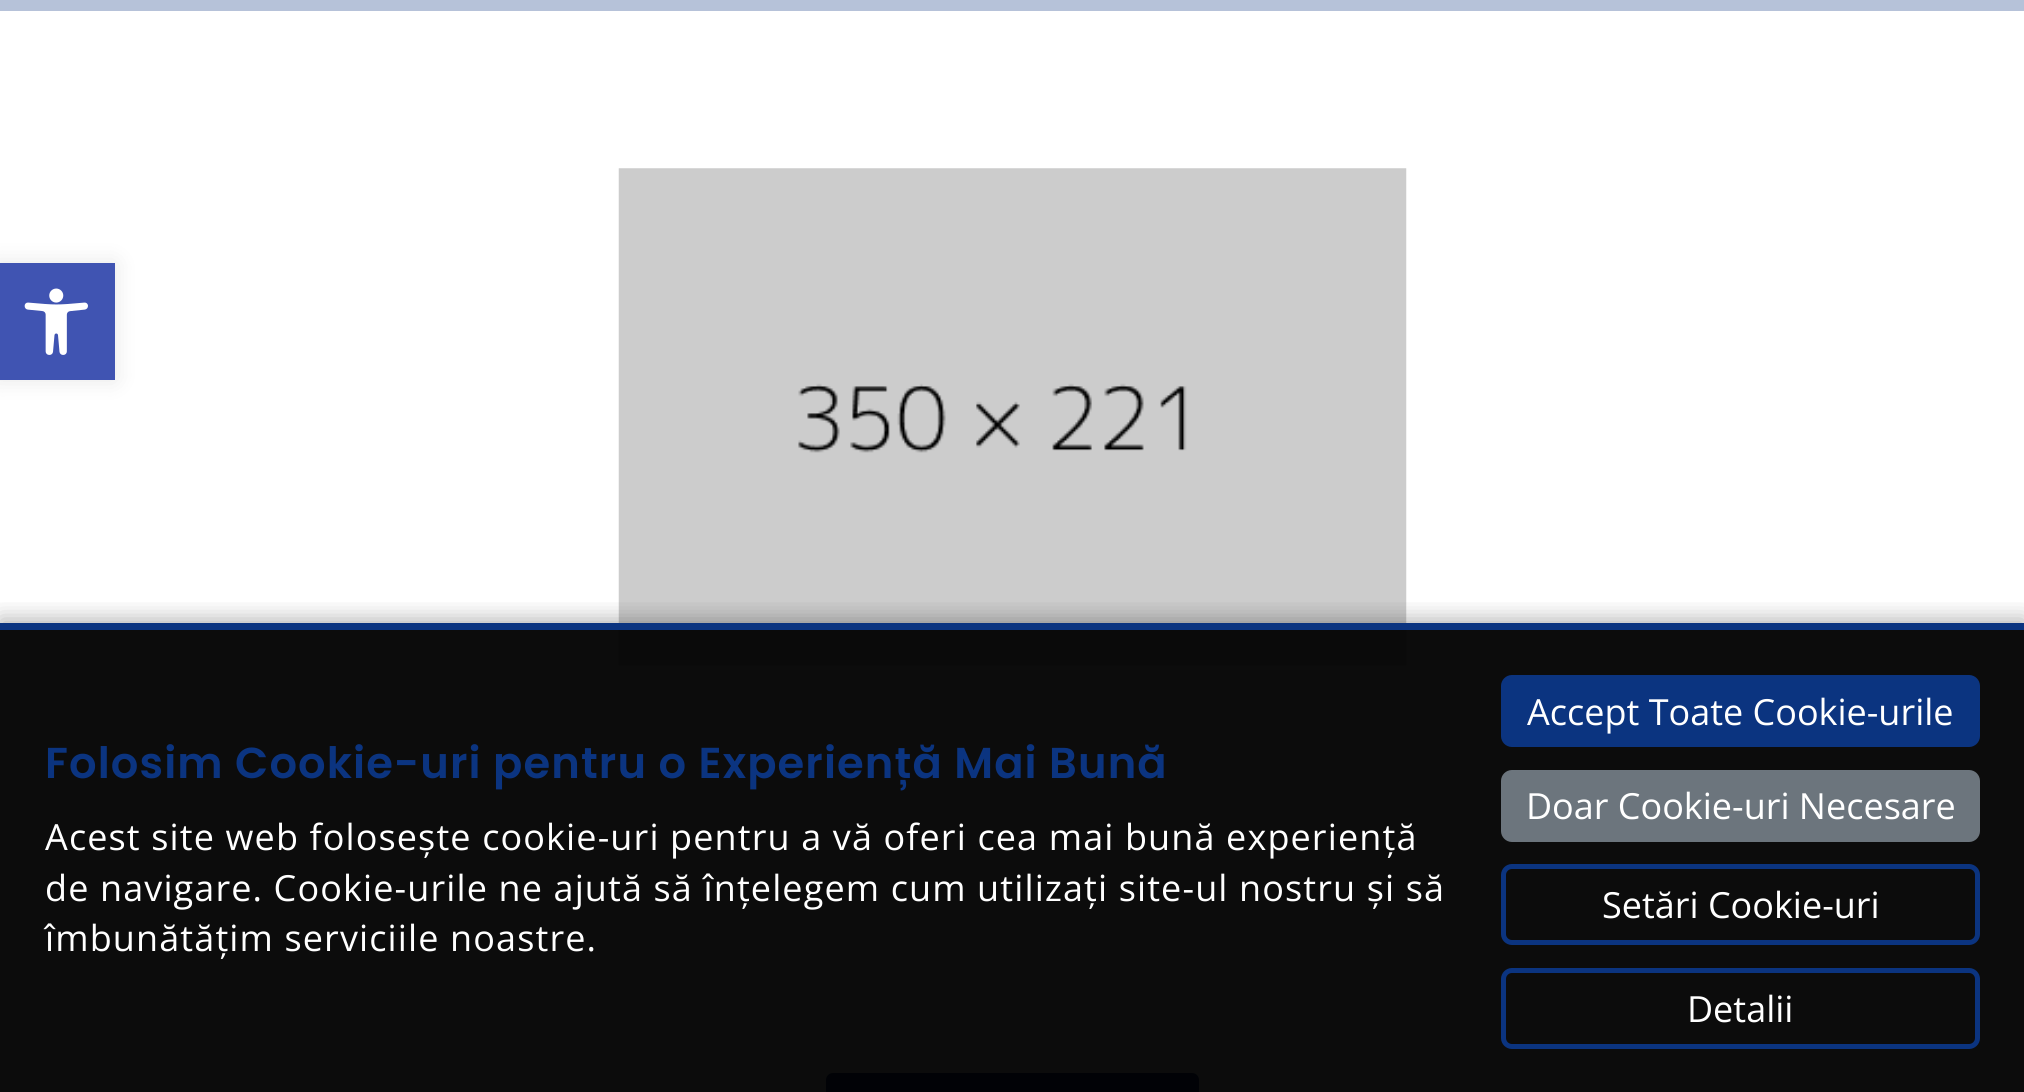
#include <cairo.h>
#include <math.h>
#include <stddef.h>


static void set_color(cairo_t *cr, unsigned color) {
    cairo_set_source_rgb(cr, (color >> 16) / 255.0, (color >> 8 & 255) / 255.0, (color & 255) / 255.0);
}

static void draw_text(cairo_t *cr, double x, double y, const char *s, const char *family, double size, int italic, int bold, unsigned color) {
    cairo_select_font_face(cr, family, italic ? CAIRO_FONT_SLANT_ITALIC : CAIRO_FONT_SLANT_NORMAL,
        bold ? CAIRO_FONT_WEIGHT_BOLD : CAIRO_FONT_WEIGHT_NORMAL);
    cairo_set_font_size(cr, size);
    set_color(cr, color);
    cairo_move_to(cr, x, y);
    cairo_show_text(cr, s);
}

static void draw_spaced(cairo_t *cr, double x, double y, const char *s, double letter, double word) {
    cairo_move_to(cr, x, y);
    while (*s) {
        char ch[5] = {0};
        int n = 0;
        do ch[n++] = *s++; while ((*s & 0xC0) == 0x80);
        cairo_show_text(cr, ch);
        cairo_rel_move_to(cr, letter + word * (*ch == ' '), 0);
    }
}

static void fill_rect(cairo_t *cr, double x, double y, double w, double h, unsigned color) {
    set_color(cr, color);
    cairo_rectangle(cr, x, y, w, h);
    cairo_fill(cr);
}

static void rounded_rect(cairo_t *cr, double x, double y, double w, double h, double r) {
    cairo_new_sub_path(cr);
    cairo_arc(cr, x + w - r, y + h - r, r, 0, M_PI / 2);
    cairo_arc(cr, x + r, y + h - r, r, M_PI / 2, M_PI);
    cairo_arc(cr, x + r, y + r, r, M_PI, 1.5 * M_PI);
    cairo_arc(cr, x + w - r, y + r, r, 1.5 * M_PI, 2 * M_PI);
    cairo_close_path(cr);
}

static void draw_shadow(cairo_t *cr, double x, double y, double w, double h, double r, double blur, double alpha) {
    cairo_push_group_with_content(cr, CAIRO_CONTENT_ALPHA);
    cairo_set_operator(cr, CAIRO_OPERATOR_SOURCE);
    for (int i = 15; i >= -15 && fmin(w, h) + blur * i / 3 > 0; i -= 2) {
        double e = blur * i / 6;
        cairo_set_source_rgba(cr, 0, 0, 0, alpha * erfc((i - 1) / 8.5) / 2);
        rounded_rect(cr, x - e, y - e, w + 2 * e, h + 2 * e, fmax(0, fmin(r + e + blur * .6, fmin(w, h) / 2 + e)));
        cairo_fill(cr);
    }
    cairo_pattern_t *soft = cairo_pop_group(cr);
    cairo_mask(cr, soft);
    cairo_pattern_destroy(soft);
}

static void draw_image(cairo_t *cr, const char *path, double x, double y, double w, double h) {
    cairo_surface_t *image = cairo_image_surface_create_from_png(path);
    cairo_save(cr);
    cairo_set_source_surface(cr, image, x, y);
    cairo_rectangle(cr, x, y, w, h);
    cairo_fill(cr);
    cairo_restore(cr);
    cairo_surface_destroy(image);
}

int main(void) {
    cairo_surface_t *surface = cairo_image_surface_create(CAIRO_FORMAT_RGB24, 2024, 1092);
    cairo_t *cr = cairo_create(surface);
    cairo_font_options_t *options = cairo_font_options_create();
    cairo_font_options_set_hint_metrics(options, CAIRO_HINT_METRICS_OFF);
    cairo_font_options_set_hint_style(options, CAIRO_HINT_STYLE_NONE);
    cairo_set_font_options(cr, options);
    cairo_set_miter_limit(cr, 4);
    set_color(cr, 0xFFFFFF);
    cairo_paint(cr);
    fill_rect(cr, 0, 0, 2024, 11, 0xB6C2D9);
    draw_image(cr, "assets/img1.png", 618, 168, 789, 498);
    set_color(cr, 0x0B3480);
    rounded_rect(cr, 826, 1073, 373, 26, 7);
    cairo_fill(cr);
    set_color(cr, 0x000000);
    draw_shadow(cr, -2, 263, 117, 117, 0, 11, 0.1);
    fill_rect(cr, 0, 263, 115, 117, 0x4054B2);
    draw_image(cr, "assets/img2.png", 24, 288, 64, 67);
    cairo_save(cr);
    cairo_rectangle(cr, 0, 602, 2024, 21);
    cairo_clip(cr);
    set_color(cr, 0x000000);
    draw_shadow(cr, 0, 619, 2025, 470, 0, 11, 0.3);
    cairo_restore(cr);
    cairo_set_source_rgba(cr, 0, 0, 0, 0.95);
    cairo_rectangle(cr, 0, 630, 2024, 462);
    cairo_fill(cr);
    fill_rect(cr, 0, 623, 2024, 7, 0x0B3480);
    cairo_select_font_face(cr, "Poppins SemiBold", CAIRO_FONT_SLANT_NORMAL, CAIRO_FONT_WEIGHT_NORMAL);
    cairo_set_font_size(cr, 43.2);
    draw_spaced(cr, 45, 778, "Folosim Cookie-uri pentru o Experiență Mai Bună", 1.12, 0);
    cairo_select_font_face(cr, "Open Sans", CAIRO_FONT_SLANT_NORMAL, CAIRO_FONT_WEIGHT_NORMAL);
    cairo_set_font_size(cr, 36);
    set_color(cr, 0xFFFFFF);
    draw_spaced(cr, 45, 850, "Acest site web folosește cookie-uri pentru a vă oferi cea mai bună experiență", 1.12, 0);
    draw_spaced(cr, 45, 901, "de navigare. Cookie-urile ne ajută să înțelegem cum utilizați site-ul nostru și să", 1.12, 0);
    draw_spaced(cr, 45, 951, "îmbunătățim serviciile noastre.", 1.12, 0);
    set_color(cr, 0x0B3480);
    rounded_rect(cr, 1501, 675, 479, 72, 11);
    cairo_fill(cr);
    draw_text(cr, 1527, 725, "Accept Toate Cookie-urile", "Open Sans", 36, 0, 0, 0xFFFFFF);
    set_color(cr, 0x6C757D);
    rounded_rect(cr, 1501, 770, 479, 72, 11);
    cairo_fill(cr);
    draw_text(cr, 1526, 819, "Doar Cookie-uri Necesare", "Open Sans", 36, 0, 0, 0xFFFFFF);
    rounded_rect(cr, 1503.5, 866.5, 474, 76, 8.5);
    set_color(cr, 0x0B3480);
    cairo_set_line_width(cr, 5);
    cairo_stroke(cr);
    draw_text(cr, 1602, 918, "Setări Cookie-uri", "Open Sans", 36, 0, 0, 0xFFFFFF);
    rounded_rect(cr, 1503.5, 970.5, 474, 76, 8.5);
    set_color(cr, 0x0B3480);
    cairo_stroke(cr);
    draw_text(cr, 1687, 1022, "Detalii", "Open Sans", 36, 0, 0, 0xFFFFFF);
    cairo_surface_write_to_png(surface, "output.png");
    cairo_font_options_destroy(options);
    cairo_destroy(cr);
    cairo_surface_destroy(surface);
    return 0;
}
